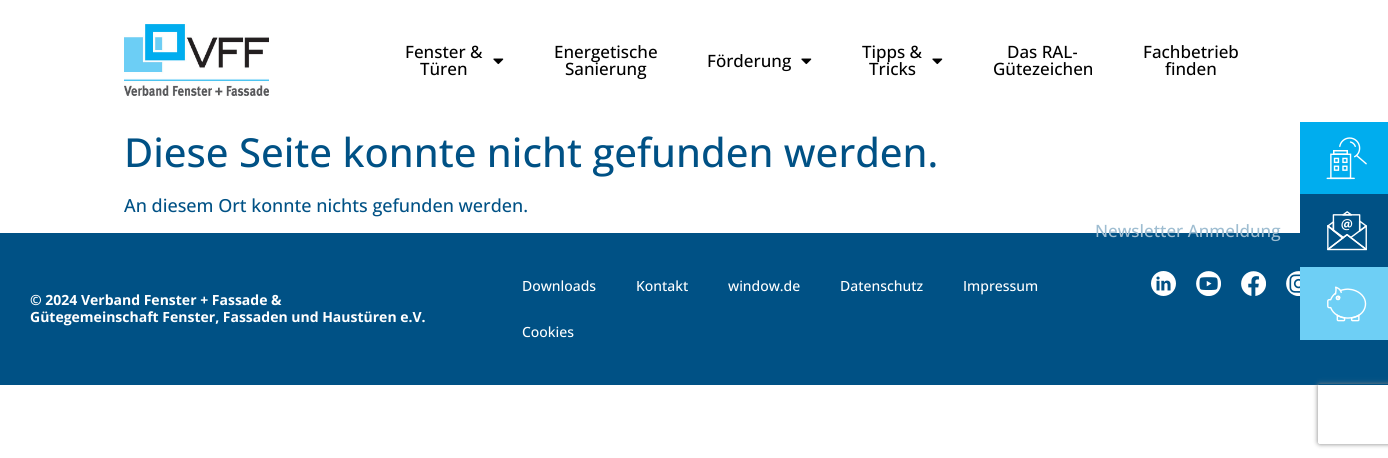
#include <cairo.h>
#include <math.h>
#include <stddef.h>


static void set_color(cairo_t *cr, unsigned color) {
    cairo_set_source_rgb(cr, (color >> 16) / 255.0, (color >> 8 & 255) / 255.0, (color & 255) / 255.0);
}

static void draw_text(cairo_t *cr, double x, double y, const char *s, const char *family, double size, int italic, int bold, unsigned color) {
    cairo_select_font_face(cr, family, italic ? CAIRO_FONT_SLANT_ITALIC : CAIRO_FONT_SLANT_NORMAL,
        bold ? CAIRO_FONT_WEIGHT_BOLD : CAIRO_FONT_WEIGHT_NORMAL);
    cairo_set_font_size(cr, size);
    set_color(cr, color);
    cairo_move_to(cr, x, y);
    cairo_show_text(cr, s);
}

static void fill_rect(cairo_t *cr, double x, double y, double w, double h, unsigned color) {
    set_color(cr, color);
    cairo_rectangle(cr, x, y, w, h);
    cairo_fill(cr);
}

static void rounded_rect(cairo_t *cr, double x, double y, double w, double h, double r) {
    cairo_new_sub_path(cr);
    cairo_arc(cr, x + w - r, y + h - r, r, 0, M_PI / 2);
    cairo_arc(cr, x + r, y + h - r, r, M_PI / 2, M_PI);
    cairo_arc(cr, x + r, y + r, r, M_PI, 1.5 * M_PI);
    cairo_arc(cr, x + w - r, y + r, r, 1.5 * M_PI, 2 * M_PI);
    cairo_close_path(cr);
}

static void draw_shadow(cairo_t *cr, double x, double y, double w, double h, double r, double blur, double alpha) {
    cairo_push_group_with_content(cr, CAIRO_CONTENT_ALPHA);
    cairo_set_operator(cr, CAIRO_OPERATOR_SOURCE);
    for (int i = 15; i >= -15 && fmin(w, h) + blur * i / 3 > 0; i -= 2) {
        double e = blur * i / 6;
        cairo_set_source_rgba(cr, 0, 0, 0, alpha * erfc((i - 1) / 8.5) / 2);
        rounded_rect(cr, x - e, y - e, w + 2 * e, h + 2 * e, fmax(0, fmin(r + e + blur * .6, fmin(w, h) / 2 + e)));
        cairo_fill(cr);
    }
    cairo_pattern_t *soft = cairo_pop_group(cr);
    cairo_mask(cr, soft);
    cairo_pattern_destroy(soft);
}

static void draw_image(cairo_t *cr, const char *path, double x, double y, double w, double h) {
    cairo_surface_t *image = cairo_image_surface_create_from_png(path);
    cairo_save(cr);
    cairo_set_source_surface(cr, image, x, y);
    cairo_rectangle(cr, x, y, w, h);
    cairo_fill(cr);
    cairo_restore(cr);
    cairo_surface_destroy(image);
}

int main(void) {
    cairo_surface_t *surface = cairo_image_surface_create(CAIRO_FORMAT_RGB24, 1388, 458);
    cairo_t *cr = cairo_create(surface);
    cairo_font_options_t *options = cairo_font_options_create();
    cairo_font_options_set_hint_metrics(options, CAIRO_HINT_METRICS_OFF);
    cairo_font_options_set_hint_style(options, CAIRO_HINT_STYLE_NONE);
    cairo_set_font_options(cr, options);
    cairo_set_miter_limit(cr, 4);
    set_color(cr, 0xFFFFFF);
    cairo_paint(cr);
    draw_image(cr, "assets/img1.png", 124, 24, 145, 72);
    draw_text(cr, 405, 58, "Fenster &", "Open Sans Medium", 17, 0, 0, 0x000000);
    draw_text(cr, 420, 75, "Türen", "Open Sans Medium", 17, 0, 0, 0x000000);
    draw_image(cr, "assets/img2.png", 493, 58, 11, 7);
    draw_text(cr, 554, 58, "Energetische", "Open Sans Medium", 17, 0, 0, 0x000000);
    draw_text(cr, 565, 75, "Sanierung", "Open Sans Medium", 17, 0, 0, 0x000000);
    draw_text(cr, 707, 67, "Förderung", "Open Sans Medium", 17, 0, 0, 0x000000);
    draw_image(cr, "assets/img2.png", 801, 58, 11, 7);
    draw_text(cr, 862, 58, "Tipps &", "Open Sans Medium", 17, 0, 0, 0x000000);
    draw_image(cr, "assets/img2.png", 932, 58, 11, 7);
    draw_text(cr, 869, 75, "Tricks", "Open Sans Medium", 17, 0, 0, 0x000000);
    draw_text(cr, 1007, 58, "Das RAL-", "Open Sans Medium", 17, 0, 0, 0x000000);
    draw_text(cr, 993, 75, "Gütezeichen", "Open Sans Medium", 17, 0, 0, 0x000000);
    draw_text(cr, 1143, 58, "Fachbetrieb", "Open Sans Medium", 17, 0, 0, 0x000000);
    draw_text(cr, 1165, 75, "finden", "Open Sans Medium", 17, 0, 0, 0x000000);
    draw_text(cr, 124, 167, "Diese Seite konnte nicht gefunden werden.", "Open Sans Medium", 40, 0, 0, 0x005185);
    draw_text(cr, 124, 212, "An diesem Ort konnte nichts gefunden werden.", "Open Sans Medium", 18, 0, 0, 0x005185);
    fill_rect(cr, 1300, 122, 88, 72, 0x00ADEE);
    draw_image(cr, "assets/img3.png", 1326, 137, 41, 43);
    fill_rect(cr, 0, 233, 1388, 152, 0x005185);
    draw_text(cr, 1095, 237, "Newsletter Anmeldung", "Open Sans Medium", 17, 0, 0, 0x9EBDD1);
    fill_rect(cr, 1300, 194, 88, 39, 0x005185);
    draw_image(cr, "assets/img4.png", 1327, 211, 40, 40);
    fill_rect(cr, 1300, 267, 88, 73, 0x6ECFF5);
    draw_image(cr, "assets/img5.png", 1327, 286, 40, 36);
    draw_text(cr, 30, 305, "© 2024 Verband Fenster + Fassade &", "Open Sans", 14, 0, 1, 0xFFFFFF);
    draw_text(cr, 30, 322, "Gütegemeinschaft Fenster, Fassaden und Haustüren e.V.", "Open Sans", 14, 0, 1, 0xFFFFFF);
    draw_text(cr, 522, 291, "Downloads", "Open Sans Medium", 14, 0, 0, 0xFFFFFF);
    draw_text(cr, 636, 291, "Kontakt", "Open Sans Medium", 14, 0, 0, 0xFFFFFF);
    draw_text(cr, 728, 291, "window.de", "Open Sans Medium", 14, 0, 0, 0xFFFFFF);
    draw_text(cr, 840, 291, "Datenschutz", "Open Sans Medium", 14, 0, 0, 0xFFFFFF);
    draw_text(cr, 963, 291, "Impressum", "Open Sans Medium", 14, 0, 0, 0xFFFFFF);
    draw_text(cr, 522, 337, "Cookies", "Open Sans Medium", 14, 0, 0, 0xFFFFFF);
    draw_image(cr, "assets/img6.png", 1151, 271, 25, 25);
    draw_image(cr, "assets/img7.png", 1196, 271, 25, 25);
    draw_image(cr, "assets/img8.png", 1241, 271, 25, 25);
    draw_image(cr, "assets/img9.png", 1286, 271, 14, 25);
    cairo_save(cr);
    cairo_set_fill_rule(cr, CAIRO_FILL_RULE_EVEN_ODD);
    cairo_new_path(cr);
    cairo_move_to(cr, 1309, 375);
    cairo_line_to(cr, 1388, 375);
    cairo_line_to(cr, 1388, 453);
    cairo_line_to(cr, 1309, 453);
    cairo_close_path(cr);
    cairo_move_to(cr, 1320, 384);
    cairo_line_to(cr, 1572, 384);
    cairo_curve_to(cr, 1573, 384, 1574, 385, 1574, 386);
    cairo_line_to(cr, 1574, 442);
    cairo_curve_to(cr, 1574, 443, 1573, 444, 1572, 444);
    cairo_line_to(cr, 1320, 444);
    cairo_curve_to(cr, 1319, 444, 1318, 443, 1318, 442);
    cairo_line_to(cr, 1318, 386);
    cairo_curve_to(cr, 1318, 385, 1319, 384, 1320, 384);
    cairo_close_path(cr);
    cairo_clip(cr);
    set_color(cr, 0x808080);
    draw_shadow(cr, 1318, 384, 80, 60, 2, 2.5, 1);
    cairo_restore(cr);
    cairo_surface_write_to_png(surface, "output.png");
    cairo_font_options_destroy(options);
    cairo_destroy(cr);
    cairo_surface_destroy(surface);
    return 0;
}
